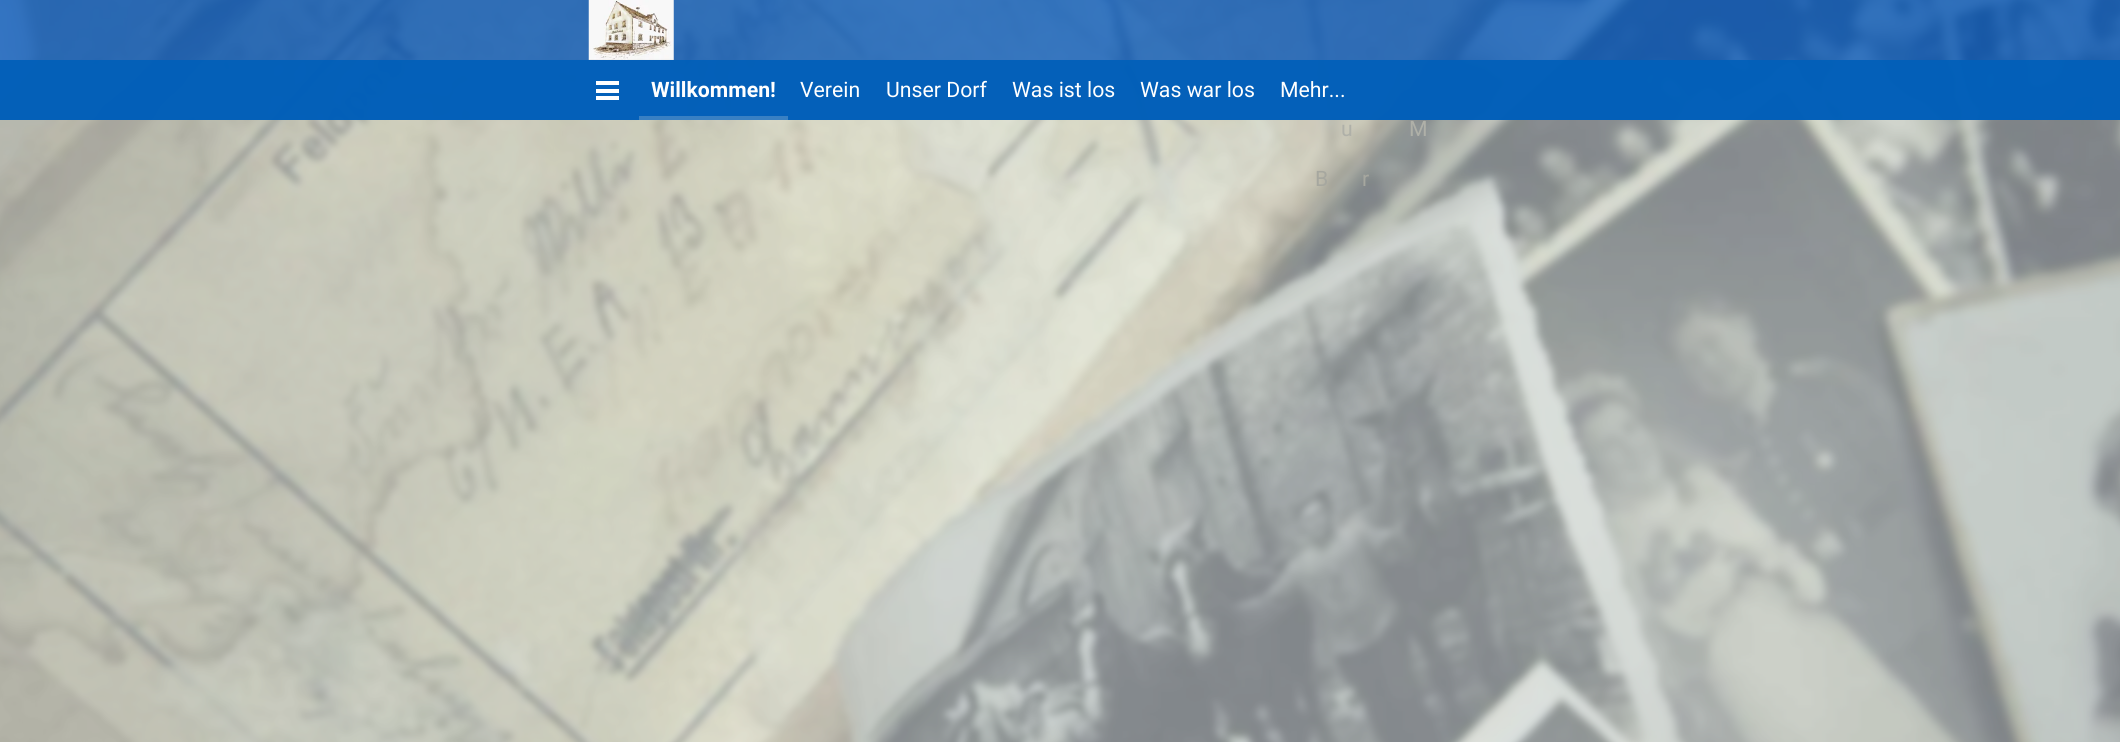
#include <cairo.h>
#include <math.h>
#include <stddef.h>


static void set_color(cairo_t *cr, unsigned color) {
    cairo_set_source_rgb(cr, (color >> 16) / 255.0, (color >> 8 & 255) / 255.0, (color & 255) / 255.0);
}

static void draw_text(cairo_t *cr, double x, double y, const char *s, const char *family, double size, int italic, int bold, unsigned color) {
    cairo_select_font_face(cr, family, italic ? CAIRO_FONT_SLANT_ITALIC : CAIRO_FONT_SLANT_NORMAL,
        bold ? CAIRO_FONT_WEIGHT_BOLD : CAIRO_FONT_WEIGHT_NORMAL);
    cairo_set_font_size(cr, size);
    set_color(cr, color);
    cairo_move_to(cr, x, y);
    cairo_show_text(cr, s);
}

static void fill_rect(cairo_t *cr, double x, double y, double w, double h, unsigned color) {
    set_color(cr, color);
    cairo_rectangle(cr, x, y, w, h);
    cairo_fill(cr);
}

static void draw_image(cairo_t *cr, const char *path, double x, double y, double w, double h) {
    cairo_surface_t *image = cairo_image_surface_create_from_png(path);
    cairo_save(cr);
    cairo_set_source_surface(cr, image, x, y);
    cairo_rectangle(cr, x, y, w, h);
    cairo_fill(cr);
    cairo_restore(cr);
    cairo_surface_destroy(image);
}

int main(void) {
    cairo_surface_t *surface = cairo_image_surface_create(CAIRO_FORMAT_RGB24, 2120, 742);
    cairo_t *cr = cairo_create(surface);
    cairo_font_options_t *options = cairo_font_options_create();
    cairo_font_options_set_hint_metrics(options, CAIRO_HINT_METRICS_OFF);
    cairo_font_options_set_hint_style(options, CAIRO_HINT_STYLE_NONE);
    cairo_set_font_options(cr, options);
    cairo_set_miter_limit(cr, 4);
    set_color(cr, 0xFFFFFF);
    cairo_paint(cr);
    draw_image(cr, "assets/img1.png", 0, 0, 2120, 742);
    cairo_set_source_rgba(cr, 0.09, 0.392, 0.765, 0.83);
    cairo_rectangle(cr, 0, 0, 2120, 60);
    cairo_fill(cr);
    draw_image(cr, "assets/img2.png", 588, 0, 86, 60);
    cairo_set_source_rgba(cr, 0, 0.369, 0.722, 0.98);
    cairo_rectangle(cr, 0, 60, 2120, 60);
    cairo_fill(cr);
    fill_rect(cr, 596, 81, 23, 4, 0xFFFFFF);
    fill_rect(cr, 596, 89, 23, 4, 0xFFFFFF);
    fill_rect(cr, 596, 96, 23, 4, 0xFFFFFF);
    draw_text(cr, 651, 97, "Willkommen!", "Roboto", 21.25, 0, 1, 0xFFFFFF);
    fill_rect(cr, 639, 116, 149, 4, 0x3980C3);
    draw_text(cr, 800, 97, "Verein", "Roboto", 21.25, 0, 0, 0xFFFFFF);
    draw_text(cr, 886, 97, "Unser Dorf", "Roboto", 21.25, 0, 0, 0xFFFFFF);
    draw_text(cr, 1012, 97, "Was ist los", "Roboto", 21.25, 0, 0, 0xFFFFFF);
    draw_text(cr, 1140, 97, "Was war los", "Roboto", 21.25, 0, 0, 0xFFFFFF);
    draw_text(cr, 1280, 97, "Mehr...", "Roboto", 21.25, 0, 0, 0xFFFFFF);
    draw_text(cr, 1341, 136, "u", "Roboto", 21.25, 0, 0, 0xAFB0A8);
    draw_text(cr, 1409, 136, "M", "Roboto", 21.25, 0, 0, 0xAFB0A8);
    draw_text(cr, 1315, 186, "B", "Roboto", 21.25, 0, 0, 0xA6A79F);
    draw_text(cr, 1362, 186, "r", "Roboto", 21.25, 0, 0, 0xA6A79F);
    cairo_surface_write_to_png(surface, "output.png");
    cairo_font_options_destroy(options);
    cairo_destroy(cr);
    cairo_surface_destroy(surface);
    return 0;
}
